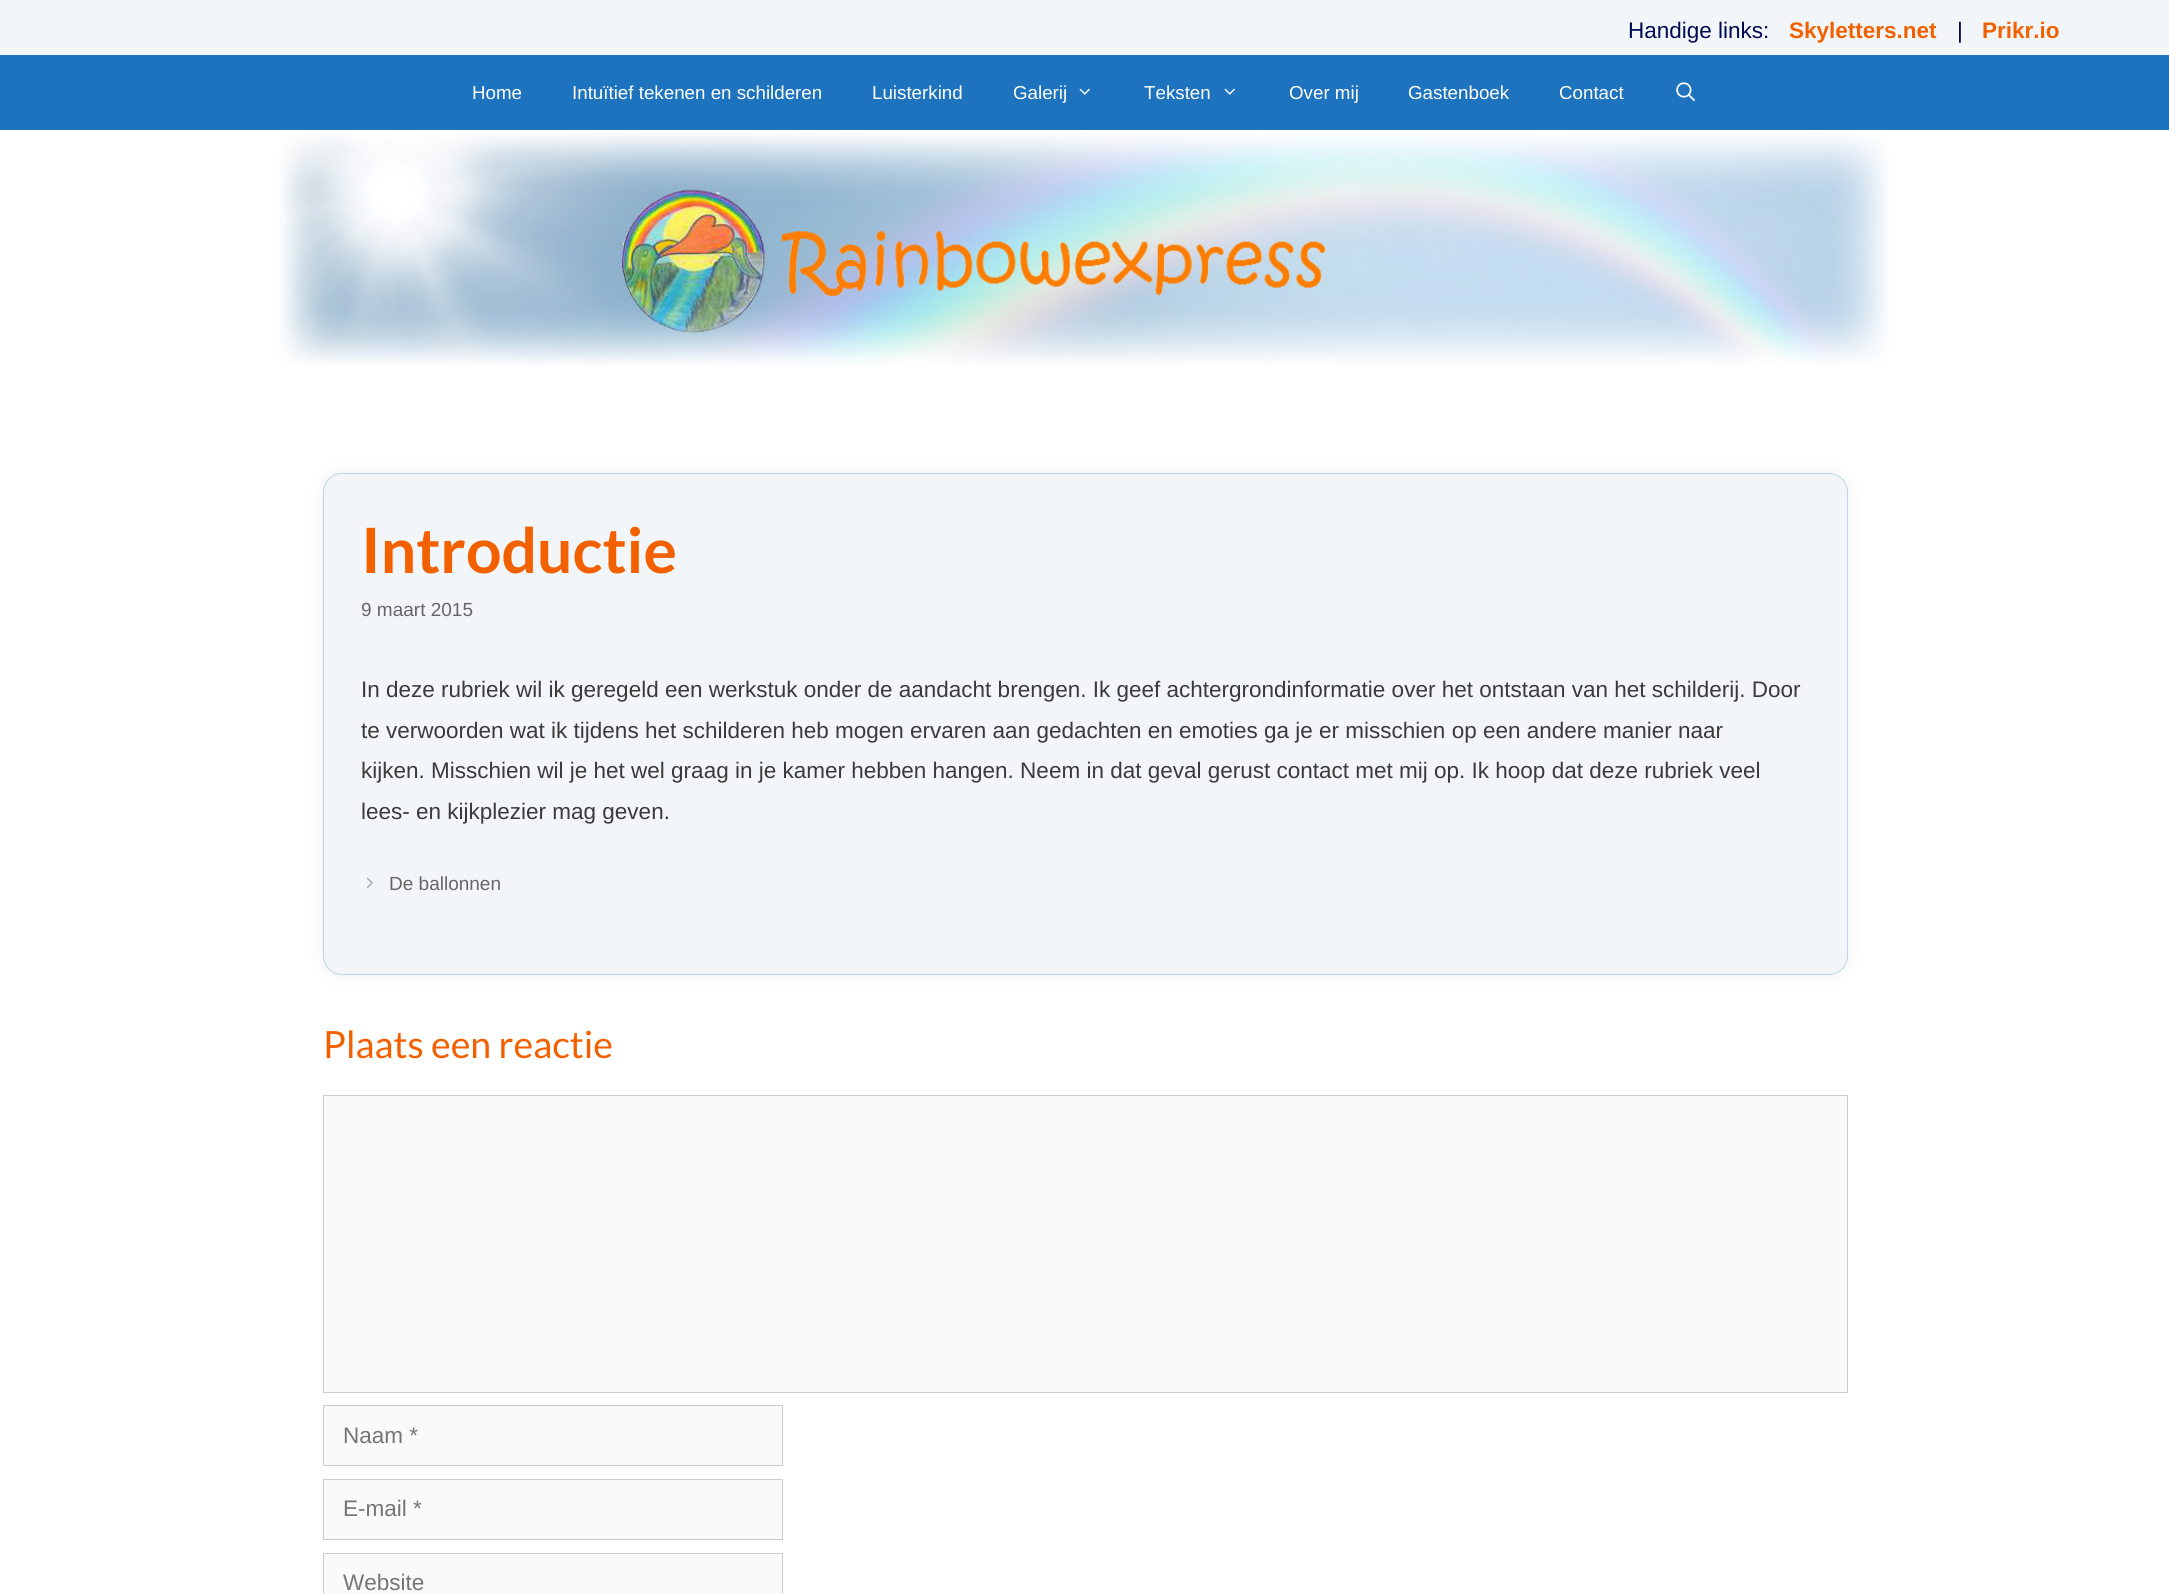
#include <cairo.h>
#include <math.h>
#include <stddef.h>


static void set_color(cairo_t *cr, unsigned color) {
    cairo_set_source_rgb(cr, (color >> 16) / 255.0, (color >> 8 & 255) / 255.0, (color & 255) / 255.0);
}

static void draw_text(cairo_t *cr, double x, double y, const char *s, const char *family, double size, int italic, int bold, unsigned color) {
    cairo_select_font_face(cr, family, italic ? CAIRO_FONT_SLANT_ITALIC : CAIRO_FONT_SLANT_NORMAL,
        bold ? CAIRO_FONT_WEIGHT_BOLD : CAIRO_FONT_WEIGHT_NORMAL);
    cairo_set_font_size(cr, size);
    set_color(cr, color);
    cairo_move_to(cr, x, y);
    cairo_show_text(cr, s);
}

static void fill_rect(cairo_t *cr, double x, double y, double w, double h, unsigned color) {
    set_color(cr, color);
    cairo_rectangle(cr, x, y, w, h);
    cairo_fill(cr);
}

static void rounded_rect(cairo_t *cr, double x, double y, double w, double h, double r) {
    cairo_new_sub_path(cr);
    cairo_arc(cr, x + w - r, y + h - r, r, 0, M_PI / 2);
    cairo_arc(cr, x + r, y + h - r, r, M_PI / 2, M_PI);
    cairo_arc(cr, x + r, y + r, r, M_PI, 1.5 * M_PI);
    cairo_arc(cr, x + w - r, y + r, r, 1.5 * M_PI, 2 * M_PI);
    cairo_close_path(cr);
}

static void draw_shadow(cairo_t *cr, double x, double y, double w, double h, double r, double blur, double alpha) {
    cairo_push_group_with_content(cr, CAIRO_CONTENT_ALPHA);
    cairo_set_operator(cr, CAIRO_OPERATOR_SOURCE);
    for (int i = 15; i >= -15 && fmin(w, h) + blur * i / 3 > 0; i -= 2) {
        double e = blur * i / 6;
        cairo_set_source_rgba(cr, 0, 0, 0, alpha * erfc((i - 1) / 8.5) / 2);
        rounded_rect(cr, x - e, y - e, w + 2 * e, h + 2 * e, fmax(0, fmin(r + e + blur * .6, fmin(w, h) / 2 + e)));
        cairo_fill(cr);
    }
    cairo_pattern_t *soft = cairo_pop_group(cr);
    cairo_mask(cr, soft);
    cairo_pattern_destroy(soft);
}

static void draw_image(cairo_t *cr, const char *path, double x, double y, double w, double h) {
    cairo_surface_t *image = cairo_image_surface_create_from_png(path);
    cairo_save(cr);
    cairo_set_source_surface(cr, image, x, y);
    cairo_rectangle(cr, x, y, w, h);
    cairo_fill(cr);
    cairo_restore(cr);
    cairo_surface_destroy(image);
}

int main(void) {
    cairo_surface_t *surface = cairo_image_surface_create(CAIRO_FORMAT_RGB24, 2169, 1594);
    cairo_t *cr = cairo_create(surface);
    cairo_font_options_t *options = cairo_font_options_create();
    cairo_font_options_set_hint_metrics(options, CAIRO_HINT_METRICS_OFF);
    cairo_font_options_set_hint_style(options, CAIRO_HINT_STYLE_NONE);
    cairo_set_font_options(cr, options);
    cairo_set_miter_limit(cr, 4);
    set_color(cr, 0xFFFFFF);
    cairo_paint(cr);
    fill_rect(cr, 0, 0, 2169, 55, 0xF2F6F9);
    draw_text(cr, 1628, 38, "Handige links:", "Liberation Sans", 22.5, 0, 0, 0x000951);
    draw_text(cr, 1789, 38, "Skyletters.net", "Liberation Sans", 22.5, 0, 1, 0xF26000);
    draw_text(cr, 1957, 38, "|", "Liberation Sans", 22.5, 0, 0, 0x000951);
    draw_text(cr, 1982, 38, "Prikr.io", "Liberation Sans", 22.5, 0, 1, 0xF26000);
    fill_rect(cr, 0, 55, 2169, 75, 0x1E73BE);
    draw_text(cr, 472, 99, "Home", "Liberation Sans", 18.75, 0, 0, 0xFFFFFF);
    draw_text(cr, 572, 99, "Intuïtief tekenen en schilderen", "Liberation Sans", 18.75, 0, 0, 0xFFFFFF);
    draw_text(cr, 872, 99, "Luisterkind", "Liberation Sans", 18.75, 0, 0, 0xFFFFFF);
    draw_text(cr, 1013, 99, "Galerij", "Liberation Sans", 18.75, 0, 0, 0xFFFFFF);
    draw_image(cr, "assets/img1.png", 1079, 88, 11, 7);
    draw_text(cr, 1144, 99, "Teksten", "Liberation Sans", 18.75, 0, 0, 0xFFFFFF);
    draw_image(cr, "assets/img1.png", 1224, 88, 11, 7);
    draw_text(cr, 1289, 99, "Over mij", "Liberation Sans", 18.75, 0, 0, 0xFFFFFF);
    draw_text(cr, 1408, 99, "Gastenboek", "Liberation Sans", 18.75, 0, 0, 0xFFFFFF);
    draw_text(cr, 1559, 99, "Contact", "Liberation Sans", 18.75, 0, 0, 0xFFFFFF);
    draw_image(cr, "assets/img2.png", 1676, 82, 19, 19);
    draw_image(cr, "assets/img3.png", 279, 132, 1610, 234);
    set_color(cr, 0x000000);
    draw_shadow(cr, 323, 473, 1525, 502, 19, 9.5, 0.06);
    set_color(cr, 0xF2F6F9);
    rounded_rect(cr, 323.5, 473.5, 1524, 501, 18.5);
    cairo_fill_preserve(cr);
    set_color(cr, 0xBAD5E9);
    cairo_set_line_width(cr, 1);
    cairo_stroke(cr);
    draw_text(cr, 361, 573, "Introductie", "Lato", 62.5, 0, 1, 0xF26000);
    draw_text(cr, 361, 616, "9 maart 2015", "Liberation Sans", 19, 0, 0, 0x666666);
    draw_text(cr, 361, 697, "In deze rubriek wil ik geregeld een werkstuk onder de aandacht brengen. Ik geef achtergrondinformatie over het ontstaan van het schilderij. Door", "Liberation Sans", 22.5, 0, 0, 0x3A3A3A);
    draw_text(cr, 361, 738, "te verwoorden wat ik tijdens het schilderen heb mogen ervaren aan gedachten en emoties ga je er misschien op een andere manier naar", "Liberation Sans", 22.5, 0, 0, 0x3A3A3A);
    draw_text(cr, 361, 778, "kijken. Misschien wil je het wel graag in je kamer hebben hangen. Neem in dat geval gerust contact met mij op. Ik hoop dat deze rubriek veel", "Liberation Sans", 22.5, 0, 0, 0x3A3A3A);
    draw_text(cr, 361, 819, "lees- en kijkplezier mag geven.", "Liberation Sans", 22.5, 0, 0, 0x3A3A3A);
    draw_image(cr, "assets/img4.png", 366, 877, 7, 11);
    draw_text(cr, 389, 890, "De ballonnen", "Liberation Sans", 19, 0, 0, 0x666666);
    draw_text(cr, 323, 1058, "Plaats een reactie", "Lato", 37.5, 0, 0, 0xF26000);
    set_color(cr, 0xFAFAFA);
    cairo_rectangle(cr, 323.5, 1095.5, 1524, 297);
    cairo_fill_preserve(cr);
    set_color(cr, 0xCCCCCC);
    cairo_stroke(cr);
    set_color(cr, 0xFAFAFA);
    cairo_rectangle(cr, 323.5, 1405.5, 459, 60);
    cairo_fill_preserve(cr);
    set_color(cr, 0xCCCCCC);
    cairo_stroke(cr);
    draw_text(cr, 343, 1443, "Naam *", "Liberation Sans", 22.5, 0, 0, 0x757575);
    set_color(cr, 0xFAFAFA);
    cairo_rectangle(cr, 323.5, 1479.5, 459, 60);
    cairo_fill_preserve(cr);
    set_color(cr, 0xCCCCCC);
    cairo_stroke(cr);
    draw_text(cr, 343, 1516, "E-mail *", "Liberation Sans", 22.5, 0, 0, 0x757575);
    set_color(cr, 0xFAFAFA);
    cairo_rectangle(cr, 323.5, 1553.5, 459, 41);
    cairo_fill_preserve(cr);
    set_color(cr, 0xCCCCCC);
    cairo_stroke(cr);
    draw_text(cr, 343, 1590, "Website", "Liberation Sans", 22.5, 0, 0, 0x757575);
    cairo_surface_write_to_png(surface, "output.png");
    cairo_font_options_destroy(options);
    cairo_destroy(cr);
    cairo_surface_destroy(surface);
    return 0;
}
